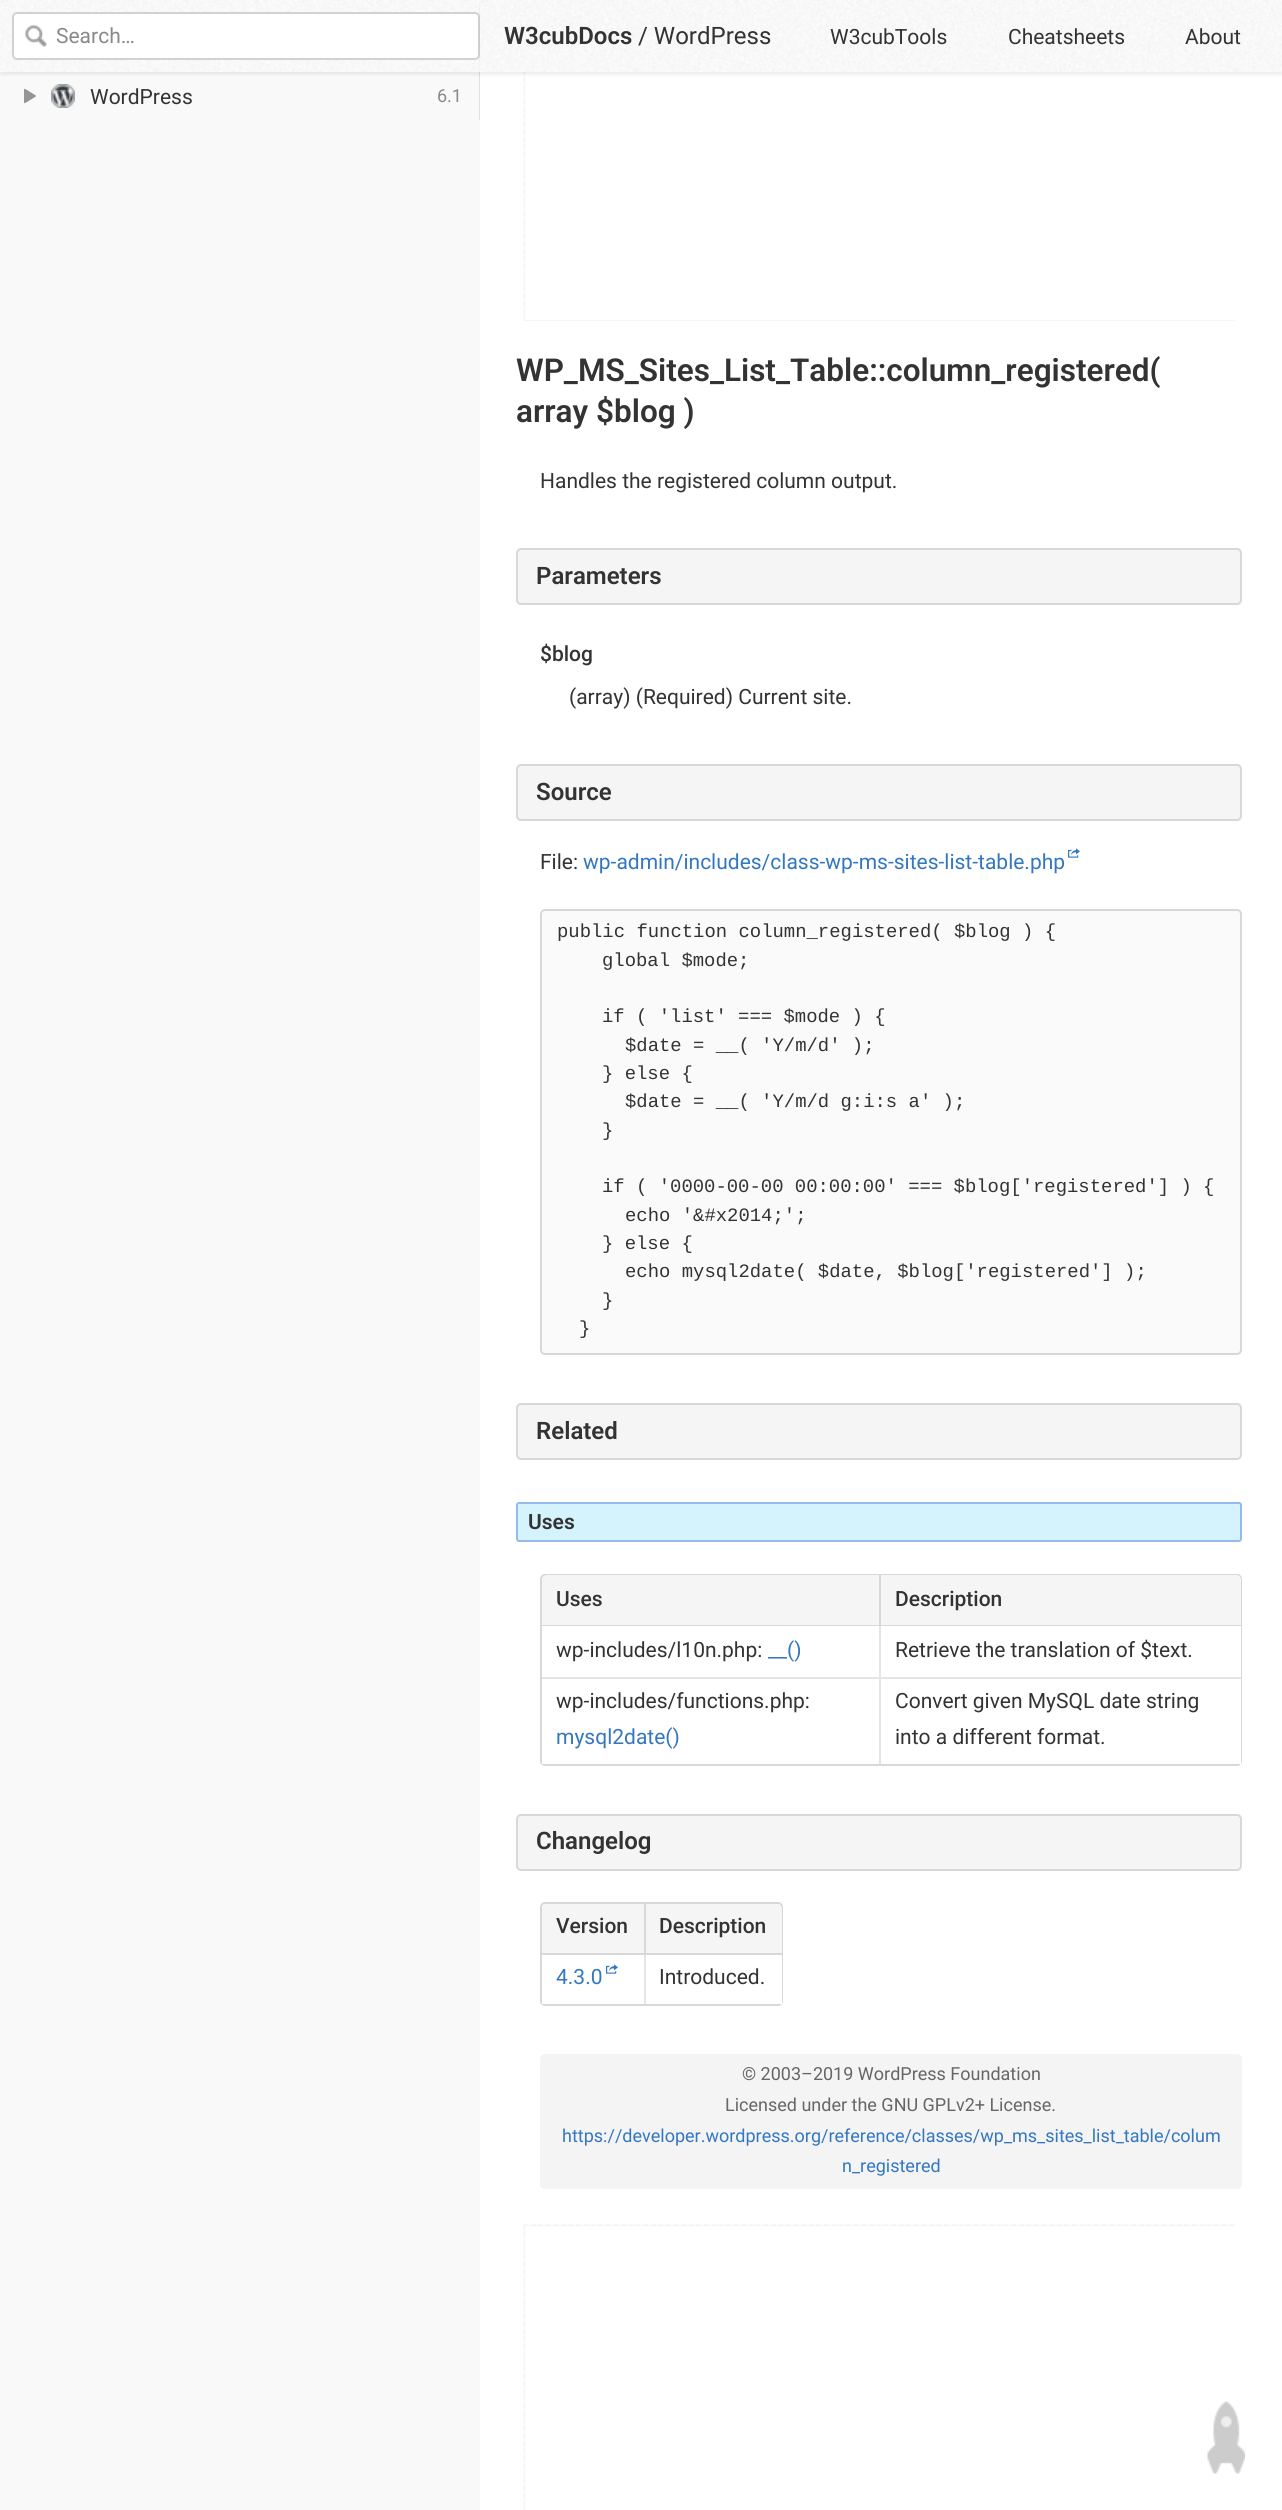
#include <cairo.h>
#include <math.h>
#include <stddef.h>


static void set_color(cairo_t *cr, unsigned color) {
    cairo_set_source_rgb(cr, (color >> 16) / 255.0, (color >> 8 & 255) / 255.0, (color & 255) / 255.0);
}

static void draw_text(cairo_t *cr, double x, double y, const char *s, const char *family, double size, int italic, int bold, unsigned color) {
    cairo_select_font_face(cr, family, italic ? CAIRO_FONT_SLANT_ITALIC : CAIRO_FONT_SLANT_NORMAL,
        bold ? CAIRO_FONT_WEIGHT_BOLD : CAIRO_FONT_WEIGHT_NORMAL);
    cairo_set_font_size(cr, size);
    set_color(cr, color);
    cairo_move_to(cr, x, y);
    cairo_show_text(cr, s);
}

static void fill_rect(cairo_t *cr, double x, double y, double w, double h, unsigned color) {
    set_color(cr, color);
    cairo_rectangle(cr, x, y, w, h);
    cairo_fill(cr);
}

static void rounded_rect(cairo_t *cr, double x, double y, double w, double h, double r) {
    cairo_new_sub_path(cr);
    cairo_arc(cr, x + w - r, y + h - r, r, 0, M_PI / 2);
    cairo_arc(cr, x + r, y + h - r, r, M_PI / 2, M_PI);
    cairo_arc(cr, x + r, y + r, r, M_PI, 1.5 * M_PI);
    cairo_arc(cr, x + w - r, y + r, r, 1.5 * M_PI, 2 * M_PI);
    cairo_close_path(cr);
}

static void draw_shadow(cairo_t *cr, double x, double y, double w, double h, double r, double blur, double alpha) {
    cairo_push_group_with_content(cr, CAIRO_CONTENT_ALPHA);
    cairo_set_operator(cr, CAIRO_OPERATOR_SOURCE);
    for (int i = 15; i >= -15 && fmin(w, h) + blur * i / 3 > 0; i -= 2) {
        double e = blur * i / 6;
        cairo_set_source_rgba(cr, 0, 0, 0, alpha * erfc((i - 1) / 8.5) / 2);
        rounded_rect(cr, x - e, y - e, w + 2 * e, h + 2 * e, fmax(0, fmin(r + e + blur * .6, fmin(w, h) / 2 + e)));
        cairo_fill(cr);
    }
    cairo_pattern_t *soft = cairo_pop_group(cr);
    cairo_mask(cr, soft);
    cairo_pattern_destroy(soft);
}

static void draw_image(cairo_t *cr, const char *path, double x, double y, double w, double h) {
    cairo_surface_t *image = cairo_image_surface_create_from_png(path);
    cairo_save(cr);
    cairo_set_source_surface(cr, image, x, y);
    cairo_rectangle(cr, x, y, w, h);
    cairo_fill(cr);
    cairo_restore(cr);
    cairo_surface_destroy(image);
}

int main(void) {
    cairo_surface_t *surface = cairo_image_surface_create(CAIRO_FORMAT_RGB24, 1282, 2510);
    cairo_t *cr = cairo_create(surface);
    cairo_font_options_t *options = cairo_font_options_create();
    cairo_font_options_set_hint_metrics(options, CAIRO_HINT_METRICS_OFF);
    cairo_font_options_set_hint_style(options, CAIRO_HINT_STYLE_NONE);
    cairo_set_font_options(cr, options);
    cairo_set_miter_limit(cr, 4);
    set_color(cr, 0xFFFFFF);
    cairo_paint(cr);
    fill_rect(cr, 0, 120, 480, 2390, 0xF9F9F9);
    fill_rect(cr, 0, 72, 479, 48, 0xF9F9F9);
    fill_rect(cr, 479, 72, 1, 48, 0xE1E1E1);
    cairo_save(cr);
    cairo_rectangle(cr, 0, 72, 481, 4);
    cairo_clip(cr);
    set_color(cr, 0x000000);
    draw_shadow(cr, 0, 3, 480, 72, 0, 1.5, 0.07);
    cairo_restore(cr);
    draw_image(cr, "assets/img1.png", 0, 0, 480, 72);
    set_color(cr, 0xFFFFFF);
    rounded_rect(cr, 13, 13, 466, 46, 4);
    cairo_fill_preserve(cr);
    set_color(cr, 0xD2D2D2);
    cairo_stroke(cr);
    draw_image(cr, "assets/img2.png", 25, 25, 22, 22);
    draw_text(cr, 56, 43, "Search…", "Roboto", 21, 0, 0, 0x888888);
    draw_image(cr, "assets/img3.png", 24, 88, 12, 16);
    draw_image(cr, "assets/img4.png", 51, 84, 24, 24);
    draw_text(cr, 90, 104, "WordPress", "Roboto", 21, 0, 0, 0x333333);
    draw_text(cr, 437, 102, "6.1", "Roboto", 18, 0, 0, 0x888888);
    fill_rect(cr, 524, 72, 711, 249, 0xF5F5F5);
    cairo_new_path(cr);
    cairo_move_to(cr, 523.5, 320);
    cairo_line_to(cr, 1234.5, 320);
    cairo_set_line_width(cr, 1.5);
    cairo_set_dash(cr, (double[]){4.5, 3.01}, 2, 0);
    cairo_stroke(cr);
    cairo_new_path(cr);
    cairo_move_to(cr, 524, -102);
    cairo_line_to(cr, 524, 321);
    cairo_set_dash(cr, (double[]){4.5, 2.97}, 2, 0);
    cairo_stroke(cr);
    fill_rect(cr, 525, 72, 710, 248, 0xFFFFFF);
    set_color(cr, 0x000000);
    draw_shadow(cr, 480, 3, 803, 72, 0, 1.5, 0.07);
    fill_rect(cr, 480, 1, 802, 71, 0xFFFFFF);
    draw_image(cr, "assets/img5.png", 480, 0, 802, 72);
    draw_text(cr, 504, 44, "W3cubDocs", "Roboto SemiBold", 24, 0, 0, 0x333333);
    draw_text(cr, 638, 44, "/ WordPress", "Roboto", 24, 0, 0, 0x333333);
    draw_text(cr, 830, 44, "W3cubTools", "Roboto", 21, 0, 0, 0x333333);
    draw_text(cr, 1008, 44, "Cheatsheets", "Roboto", 21, 0, 0, 0x333333);
    draw_text(cr, 1185, 44, "About", "Roboto", 21, 0, 0, 0x333333);
    draw_text(cr, 516, 381, "WP_MS_Sites_List_Table::column_registered(", "Roboto SemiBold", 31.5, 0, 0, 0x333333);
    draw_text(cr, 516, 422, "array $blog )", "Roboto SemiBold", 31.5, 0, 0, 0x333333);
    draw_text(cr, 540, 488, "Handles the registered column output.", "Roboto", 21, 0, 0, 0x333333);
    set_color(cr, 0xF5F5F5);
    rounded_rect(cr, 517, 549, 724, 55, 4);
    cairo_fill_preserve(cr);
    set_color(cr, 0xD8D8D8);
    cairo_set_line_width(cr, 2);
    cairo_set_dash(cr, NULL, 0, 0);
    cairo_stroke(cr);
    draw_text(cr, 536, 584, "Parameters", "Roboto SemiBold", 24, 0, 0, 0x333333);
    draw_text(cr, 540, 661, "$blog", "Roboto Medium", 21, 0, 0, 0x333333);
    draw_text(cr, 569, 704, "(array) (Required) Current site.", "Roboto", 21, 0, 0, 0x333333);
    set_color(cr, 0xF5F5F5);
    rounded_rect(cr, 517, 765, 724, 55, 4);
    cairo_fill_preserve(cr);
    set_color(cr, 0xD8D8D8);
    cairo_stroke(cr);
    draw_text(cr, 536, 800, "Source", "Roboto SemiBold", 24, 0, 0, 0x333333);
    draw_text(cr, 540, 869, "File:", "Roboto", 21, 0, 0, 0x333333);
    draw_text(cr, 583, 869, "wp-admin/includes/class-wp-ms-sites-list-table.php", "Roboto", 21, 0, 0, 0x3377C0);
    draw_image(cr, "assets/img6.png", 1068, 848, 12, 10);
    set_color(cr, 0xFAFAFA);
    rounded_rect(cr, 541, 910, 700, 444, 4);
    cairo_fill_preserve(cr);
    set_color(cr, 0xD8D8D8);
    cairo_stroke(cr);
    draw_text(cr, 557, 937, "public function column_registered( $blog ) {", "Liberation Mono", 18.9, 0, 0, 0x333333);
    draw_text(cr, 602, 966, "global $mode;", "Liberation Mono", 18.9, 0, 0, 0x333333);
    draw_text(cr, 602, 1022, "if ( 'list' === $mode ) {", "Liberation Mono", 18.9, 0, 0, 0x333333);
    draw_text(cr, 625, 1051, "$date = __( 'Y/m/d' );", "Liberation Mono", 18.9, 0, 0, 0x333333);
    draw_text(cr, 602, 1079, "} else {", "Liberation Mono", 18.9, 0, 0, 0x333333);
    draw_text(cr, 625, 1107, "$date = __( 'Y/m/d g:i:s a' );", "Liberation Mono", 18.9, 0, 0, 0x333333);
    draw_text(cr, 602, 1136, "}", "Liberation Mono", 18.9, 0, 0, 0x333333);
    draw_text(cr, 602, 1192, "if ( '0000-00-00 00:00:00' === $blog['registered'] ) {", "Liberation Mono", 18.9, 0, 0, 0x333333);
    draw_text(cr, 625, 1221, "echo '&#x2014;';", "Liberation Mono", 18.9, 0, 0, 0x333333);
    draw_text(cr, 602, 1249, "} else {", "Liberation Mono", 18.9, 0, 0, 0x333333);
    draw_text(cr, 625, 1277, "echo mysql2date( $date, $blog['registered'] );", "Liberation Mono", 18.9, 0, 0, 0x333333);
    draw_text(cr, 602, 1306, "}", "Liberation Mono", 18.9, 0, 0, 0x333333);
    draw_text(cr, 579, 1334, "}", "Liberation Mono", 18.9, 0, 0, 0x333333);
    set_color(cr, 0xF5F5F5);
    rounded_rect(cr, 517, 1404, 724, 55, 4);
    cairo_fill_preserve(cr);
    set_color(cr, 0xD8D8D8);
    cairo_stroke(cr);
    draw_text(cr, 536, 1439, "Related", "Roboto SemiBold", 24, 0, 0, 0x333333);
    set_color(cr, 0xD4F3FD);
    rounded_rect(cr, 517, 1503, 724, 38, 2);
    cairo_fill_preserve(cr);
    set_color(cr, 0x94BBEB);
    cairo_stroke(cr);
    draw_text(cr, 528, 1529, "Uses", "Roboto SemiBold", 21, 0, 0, 0x333333);
    rounded_rect(cr, 541, 1575, 700, 190, 4);
    set_color(cr, 0xD8D8D8);
    cairo_stroke(cr);
    set_color(cr, 0xF5F5F5);
    cairo_new_path(cr);
    cairo_move_to(cr, 547, 1575);
    cairo_line_to(cr, 879, 1575);
    cairo_line_to(cr, 879, 1626);
    cairo_line_to(cr, 542, 1626);
    cairo_line_to(cr, 542, 1580);
    cairo_curve_to(cr, 542, 1577, 544, 1575, 547, 1575);
    cairo_close_path(cr);
    cairo_fill(cr);
    fill_rect(cr, 542, 1625, 337, 1, 0xD8D8D8);
    draw_text(cr, 556, 1606, "Uses", "Roboto Medium", 21, 0, 0, 0x333333);
    set_color(cr, 0xF5F5F5);
    cairo_new_path(cr);
    cairo_move_to(cr, 879, 1575);
    cairo_line_to(cr, 1236, 1575);
    cairo_curve_to(cr, 1239, 1575, 1241, 1577, 1241, 1580);
    cairo_line_to(cr, 1241, 1626);
    cairo_line_to(cr, 879, 1626);
    cairo_close_path(cr);
    cairo_fill(cr);
    fill_rect(cr, 879, 1625, 362, 1, 0xD8D8D8);
    fill_rect(cr, 879, 1575, 2, 51, 0xD8D8D8);
    draw_text(cr, 895, 1606, "Description", "Roboto Medium", 21, 0, 0, 0x333333);
    fill_rect(cr, 542, 1677, 699, 2, 0xE5E5E5);
    draw_text(cr, 556, 1657, "wp-includes/l10n.php:", "Roboto", 21, 0, 0, 0x333333);
    draw_text(cr, 768, 1657, "__()", "Roboto", 21, 0, 0, 0x3377C0);
    fill_rect(cr, 1240, 1626, 1, 51, 0xFFFFFF);
    fill_rect(cr, 879, 1626, 2, 138, 0xE5E5E5);
    draw_text(cr, 895, 1657, "Retrieve the translation of $text.", "Roboto", 21, 0, 0, 0x333333);
    fill_rect(cr, 542, 1761, 3, 3, 0xFFFFFF);
    draw_text(cr, 556, 1708, "wp-includes/functions.php:", "Roboto", 21, 0, 0, 0x333333);
    draw_text(cr, 556, 1744, "mysql2date()", "Roboto", 21, 0, 0, 0x3377C0);
    fill_rect(cr, 1237, 1679, 4, 85, 0xFFFFFF);
    draw_text(cr, 895, 1708, "Convert given MySQL date string", "Roboto", 21, 0, 0, 0x333333);
    draw_text(cr, 895, 1744, "into a different format.", "Roboto", 21, 0, 0, 0x333333);
    set_color(cr, 0xF5F5F5);
    rounded_rect(cr, 517, 1815, 724, 55, 4);
    cairo_fill_preserve(cr);
    set_color(cr, 0xD8D8D8);
    cairo_stroke(cr);
    draw_text(cr, 536, 1849, "Changelog", "Roboto SemiBold", 24, 0, 0, 0x333333);
    rounded_rect(cr, 541, 1903, 241, 102, 4);
    set_color(cr, 0xD8D8D8);
    cairo_stroke(cr);
    set_color(cr, 0xF5F5F5);
    cairo_new_path(cr);
    cairo_move_to(cr, 547, 1904);
    cairo_line_to(cr, 644, 1904);
    cairo_line_to(cr, 644, 1955);
    cairo_line_to(cr, 542, 1955);
    cairo_line_to(cr, 542, 1909);
    cairo_curve_to(cr, 542, 1906, 544, 1904, 547, 1904);
    cairo_close_path(cr);
    cairo_fill(cr);
    fill_rect(cr, 542, 1953, 102, 2, 0xD8D8D8);
    draw_text(cr, 556, 1933, "Version", "Roboto Medium", 21, 0, 0, 0x333333);
    set_color(cr, 0xF5F5F5);
    cairo_new_path(cr);
    cairo_move_to(cr, 644, 1904);
    cairo_line_to(cr, 777, 1904);
    cairo_curve_to(cr, 780, 1904, 782, 1906, 782, 1909);
    cairo_line_to(cr, 782, 1955);
    cairo_line_to(cr, 644, 1955);
    cairo_close_path(cr);
    cairo_fill(cr);
    fill_rect(cr, 644, 1953, 138, 2, 0xD8D8D8);
    fill_rect(cr, 644, 1904, 2, 51, 0xD8D8D8);
    draw_text(cr, 659, 1933, "Description", "Roboto Medium", 21, 0, 0, 0x333333);
    fill_rect(cr, 542, 2001, 3, 3, 0xFFFFFF);
    draw_text(cr, 556, 1984, "4.3.0", "Roboto", 21, 0, 0, 0x3377C0);
    draw_image(cr, "assets/img6.png", 606, 1964, 12, 10);
    fill_rect(cr, 778, 1955, 4, 49, 0xFFFFFF);
    fill_rect(cr, 644, 1955, 2, 49, 0xE5E5E5);
    draw_text(cr, 659, 1984, "Introduced.", "Roboto", 21, 0, 0, 0x333333);
    set_color(cr, 0xF4F4F4);
    rounded_rect(cr, 540, 2054, 702, 135, 5);
    cairo_fill(cr);
    draw_text(cr, 742, 2080, "© 2003–2019 WordPress Foundation", "Roboto", 18, 0, 0, 0x666666);
    draw_text(cr, 725, 2111, "Licensed under the GNU GPLv2+ License.", "Roboto", 18, 0, 0, 0x666666);
    draw_text(cr, 562, 2142, "https://developer.wordpress.org/reference/classes/wp_ms_sites_list_table/colum", "Roboto", 18, 0, 0, 0x3377C0);
    draw_text(cr, 842, 2172, "n_registered", "Roboto", 18, 0, 0, 0x3377C0);
    fill_rect(cr, 524, 2225, 711, 285, 0xF5F5F5);
    cairo_new_path(cr);
    cairo_move_to(cr, 523.5, 2225);
    cairo_line_to(cr, 1234.5, 2225);
    cairo_set_line_width(cr, 1.5);
    cairo_set_dash(cr, (double[]){4.5, 3.01}, 2, 0);
    cairo_stroke(cr);
    cairo_new_path(cr);
    cairo_move_to(cr, 1234, 2224.5);
    cairo_line_to(cr, 1234, 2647.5);
    cairo_set_dash(cr, (double[]){4.5, 2.97}, 2, 0);
    cairo_stroke(cr);
    cairo_new_path(cr);
    cairo_move_to(cr, 524, 2224.5);
    cairo_line_to(cr, 524, 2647.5);
    cairo_stroke(cr);
    fill_rect(cr, 525, 2226, 710, 284, 0xFFFFFF);
    draw_image(cr, "assets/img7.png", 1207, 2401, 38, 73);
    cairo_surface_write_to_png(surface, "output.png");
    cairo_font_options_destroy(options);
    cairo_destroy(cr);
    cairo_surface_destroy(surface);
    return 0;
}
